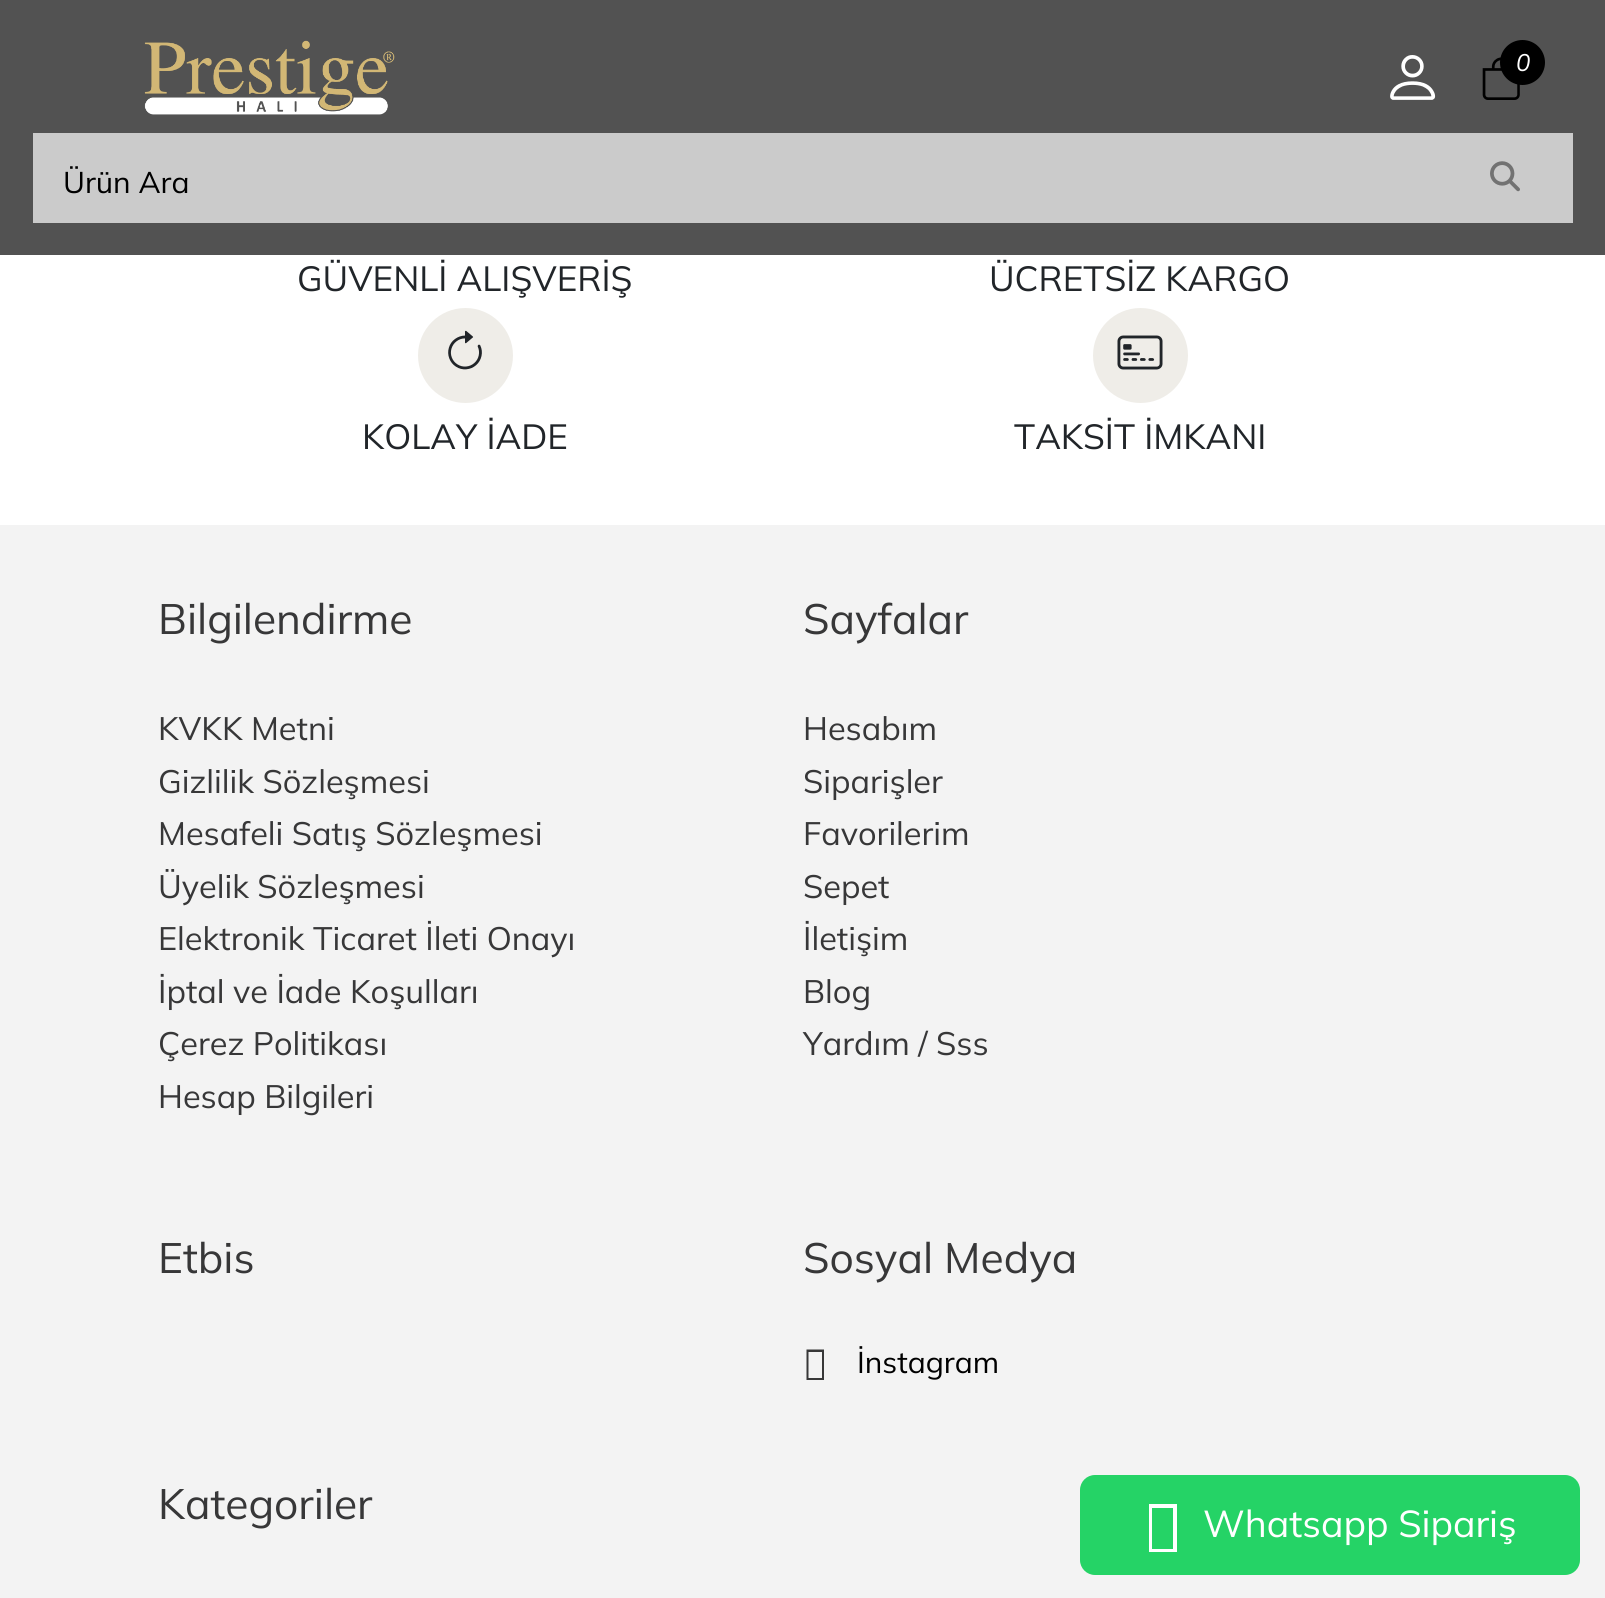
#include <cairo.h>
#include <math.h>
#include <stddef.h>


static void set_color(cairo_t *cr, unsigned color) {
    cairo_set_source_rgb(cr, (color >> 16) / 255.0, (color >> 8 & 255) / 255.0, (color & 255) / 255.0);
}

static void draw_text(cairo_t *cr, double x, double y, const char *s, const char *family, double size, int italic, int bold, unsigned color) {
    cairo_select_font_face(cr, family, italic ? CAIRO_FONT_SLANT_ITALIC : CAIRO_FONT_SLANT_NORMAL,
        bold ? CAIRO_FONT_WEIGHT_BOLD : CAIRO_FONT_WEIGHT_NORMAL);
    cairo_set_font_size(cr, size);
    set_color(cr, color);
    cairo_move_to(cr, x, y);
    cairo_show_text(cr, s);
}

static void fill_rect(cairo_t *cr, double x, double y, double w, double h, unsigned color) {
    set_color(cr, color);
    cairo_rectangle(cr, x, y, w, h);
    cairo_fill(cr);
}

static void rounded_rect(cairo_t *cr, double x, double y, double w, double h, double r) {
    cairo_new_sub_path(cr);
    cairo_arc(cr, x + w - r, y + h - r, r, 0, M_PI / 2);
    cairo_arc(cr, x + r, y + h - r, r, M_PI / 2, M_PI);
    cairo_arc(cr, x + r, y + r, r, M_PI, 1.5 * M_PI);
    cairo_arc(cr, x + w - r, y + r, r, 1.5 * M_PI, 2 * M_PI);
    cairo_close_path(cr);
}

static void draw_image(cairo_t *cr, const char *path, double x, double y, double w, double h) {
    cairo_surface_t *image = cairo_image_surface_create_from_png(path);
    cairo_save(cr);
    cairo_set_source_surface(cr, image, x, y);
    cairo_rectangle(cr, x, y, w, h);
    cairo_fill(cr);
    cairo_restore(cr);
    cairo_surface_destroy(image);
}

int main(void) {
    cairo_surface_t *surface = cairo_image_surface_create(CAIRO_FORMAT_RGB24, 1605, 1598);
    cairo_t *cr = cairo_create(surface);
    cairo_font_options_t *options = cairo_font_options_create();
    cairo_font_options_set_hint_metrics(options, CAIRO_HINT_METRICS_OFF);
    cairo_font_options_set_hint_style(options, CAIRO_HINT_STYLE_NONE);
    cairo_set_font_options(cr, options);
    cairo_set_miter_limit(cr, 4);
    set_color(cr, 0xFFFFFF);
    cairo_paint(cr);
    fill_rect(cr, 0, 0, 1605, 255, 0x525252);
    draw_image(cr, "assets/img1.png", 144, 40, 251, 75);
    draw_image(cr, "assets/img2.png", 1390, 55, 46, 45);
    draw_image(cr, "assets/img3.png", 1482, 57, 38, 43);
    set_color(cr, 0x000000);
    cairo_arc(cr, 1522.5, 62.5, 22.5, 0, 2 * M_PI);
    cairo_fill(cr);
    draw_text(cr, 1516, 71, "0", "Mulish", 24, 1, 0, 0xFFFFFF);
    fill_rect(cr, 33, 133, 1540, 90, 0xCBCBCB);
    draw_text(cr, 63, 193, "Ürün Ara", "Mulish", 30, 0, 0, 0x000000);
    draw_image(cr, "assets/img4.png", 1490, 161, 30, 31);
    draw_text(cr, 297, 291, "GÜVENLİ ALIŞVERİŞ", "Mulish", 35, 0, 0, 0x212529);
    draw_text(cr, 989, 291, "ÜCRETSİZ KARGO", "Mulish", 35, 0, 0, 0x212529);
    set_color(cr, 0xEFEDE8);
    cairo_new_path(cr);
    cairo_arc(cr, 465.5, 355.5, 47.5, 0, 2 * M_PI);
    cairo_fill(cr);
    draw_image(cr, "assets/img5.png", 448, 330, 34, 40);
    draw_text(cr, 362, 449, "KOLAY İADE", "Mulish", 35, 0, 0, 0x212529);
    set_color(cr, 0xEFEDE8);
    cairo_new_path(cr);
    cairo_arc(cr, 1140.5, 355.5, 47.5, 0, 2 * M_PI);
    cairo_fill(cr);
    draw_image(cr, "assets/img6.png", 1117, 335, 46, 35);
    draw_text(cr, 1014, 449, "TAKSİT İMKANI", "Mulish", 35, 0, 0, 0x212529);
    fill_rect(cr, 0, 525, 1605, 1073, 0xF3F3F3);
    draw_text(cr, 158, 634, "Bilgilendirme", "Mulish", 42.5, 0, 0, 0x373738);
    draw_text(cr, 158, 740, "KVKK Metni", "Mulish", 32.5, 0, 0, 0x373738);
    draw_text(cr, 158, 793, "Gizlilik Sözleşmesi", "Mulish", 32.5, 0, 0, 0x373738);
    draw_text(cr, 158, 845, "Mesafeli Satış Sözleşmesi", "Mulish", 32.5, 0, 0, 0x373738);
    draw_text(cr, 158, 898, "Üyelik Sözleşmesi", "Mulish", 32.5, 0, 0, 0x373738);
    draw_text(cr, 158, 950, "Elektronik Ticaret İleti Onayı", "Mulish", 32.5, 0, 0, 0x373738);
    draw_text(cr, 158, 1003, "İptal ve İade Koşulları", "Mulish", 32.5, 0, 0, 0x373738);
    draw_text(cr, 158, 1055, "Çerez Politikası", "Mulish", 32.5, 0, 0, 0x373738);
    draw_text(cr, 158, 1108, "Hesap Bilgileri", "Mulish", 32.5, 0, 0, 0x373738);
    draw_text(cr, 803, 634, "Sayfalar", "Mulish", 42.5, 0, 0, 0x373738);
    draw_text(cr, 803, 740, "Hesabım", "Mulish", 32.5, 0, 0, 0x373738);
    draw_text(cr, 803, 793, "Siparişler", "Mulish", 32.5, 0, 0, 0x373738);
    draw_text(cr, 803, 845, "Favorilerim", "Mulish", 32.5, 0, 0, 0x373738);
    draw_text(cr, 803, 898, "Sepet", "Mulish", 32.5, 0, 0, 0x373738);
    draw_text(cr, 803, 950, "İletişim", "Mulish", 32.5, 0, 0, 0x373738);
    draw_text(cr, 803, 1003, "Blog", "Mulish", 32.5, 0, 0, 0x373738);
    draw_text(cr, 803, 1055, "Yardım / Sss", "Mulish", 32.5, 0, 0, 0x373738);
    draw_text(cr, 158, 1273, "Etbis", "Mulish", 42.5, 0, 0, 0x373738);
    draw_text(cr, 803, 1273, "Sosyal Medya", "Mulish", 42.5, 0, 0, 0x373738);
    cairo_new_path(cr);
    cairo_move_to(cr, 806.5, 1380);
    cairo_line_to(cr, 806.5, 1349.5);
    cairo_line_to(cr, 824, 1349.5);
    cairo_line_to(cr, 824, 1380);
    cairo_close_path(cr);
    cairo_move_to(cr, 808.5, 1378);
    cairo_line_to(cr, 822, 1378);
    cairo_line_to(cr, 822, 1352);
    cairo_line_to(cr, 808.5, 1352);
    cairo_close_path(cr);
    cairo_fill(cr);
    draw_text(cr, 857, 1373, "İnstagram", "Mulish", 30, 0, 0, 0x000000);
    draw_text(cr, 158, 1519, "Kategoriler", "Mulish", 42.5, 0, 0, 0x373738);
    set_color(cr, 0x25D366);
    rounded_rect(cr, 1080, 1475, 500, 100, 15);
    cairo_fill(cr);
    set_color(cr, 0xFFFFFF);
    cairo_new_path(cr);
    cairo_move_to(cr, 1149, 1552);
    cairo_line_to(cr, 1149, 1504);
    cairo_line_to(cr, 1177, 1504);
    cairo_line_to(cr, 1177, 1552);
    cairo_close_path(cr);
    cairo_move_to(cr, 1152, 1549);
    cairo_line_to(cr, 1173, 1549);
    cairo_line_to(cr, 1173, 1508);
    cairo_line_to(cr, 1152, 1508);
    cairo_close_path(cr);
    cairo_fill(cr);
    draw_text(cr, 1203, 1537, "Whatsapp Sipariş", "Mulish", 37.5, 0, 0, 0xFFFFFF);
    cairo_surface_write_to_png(surface, "output.png");
    cairo_font_options_destroy(options);
    cairo_destroy(cr);
    cairo_surface_destroy(surface);
    return 0;
}
